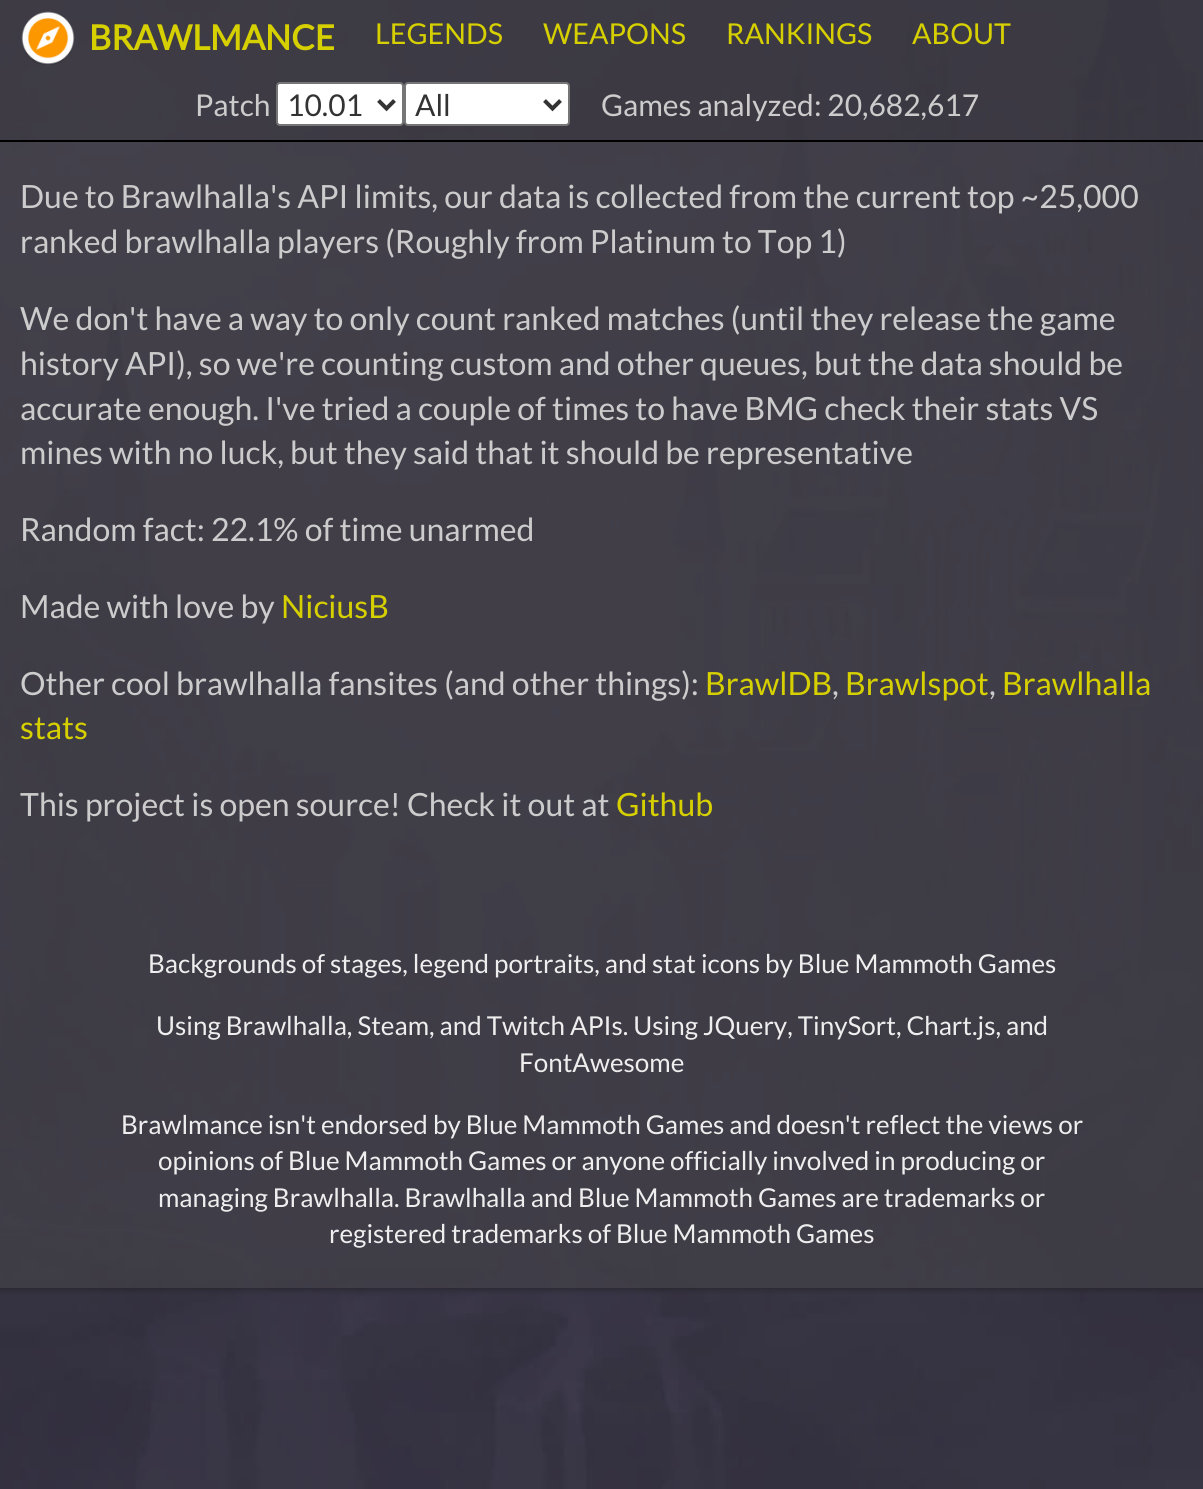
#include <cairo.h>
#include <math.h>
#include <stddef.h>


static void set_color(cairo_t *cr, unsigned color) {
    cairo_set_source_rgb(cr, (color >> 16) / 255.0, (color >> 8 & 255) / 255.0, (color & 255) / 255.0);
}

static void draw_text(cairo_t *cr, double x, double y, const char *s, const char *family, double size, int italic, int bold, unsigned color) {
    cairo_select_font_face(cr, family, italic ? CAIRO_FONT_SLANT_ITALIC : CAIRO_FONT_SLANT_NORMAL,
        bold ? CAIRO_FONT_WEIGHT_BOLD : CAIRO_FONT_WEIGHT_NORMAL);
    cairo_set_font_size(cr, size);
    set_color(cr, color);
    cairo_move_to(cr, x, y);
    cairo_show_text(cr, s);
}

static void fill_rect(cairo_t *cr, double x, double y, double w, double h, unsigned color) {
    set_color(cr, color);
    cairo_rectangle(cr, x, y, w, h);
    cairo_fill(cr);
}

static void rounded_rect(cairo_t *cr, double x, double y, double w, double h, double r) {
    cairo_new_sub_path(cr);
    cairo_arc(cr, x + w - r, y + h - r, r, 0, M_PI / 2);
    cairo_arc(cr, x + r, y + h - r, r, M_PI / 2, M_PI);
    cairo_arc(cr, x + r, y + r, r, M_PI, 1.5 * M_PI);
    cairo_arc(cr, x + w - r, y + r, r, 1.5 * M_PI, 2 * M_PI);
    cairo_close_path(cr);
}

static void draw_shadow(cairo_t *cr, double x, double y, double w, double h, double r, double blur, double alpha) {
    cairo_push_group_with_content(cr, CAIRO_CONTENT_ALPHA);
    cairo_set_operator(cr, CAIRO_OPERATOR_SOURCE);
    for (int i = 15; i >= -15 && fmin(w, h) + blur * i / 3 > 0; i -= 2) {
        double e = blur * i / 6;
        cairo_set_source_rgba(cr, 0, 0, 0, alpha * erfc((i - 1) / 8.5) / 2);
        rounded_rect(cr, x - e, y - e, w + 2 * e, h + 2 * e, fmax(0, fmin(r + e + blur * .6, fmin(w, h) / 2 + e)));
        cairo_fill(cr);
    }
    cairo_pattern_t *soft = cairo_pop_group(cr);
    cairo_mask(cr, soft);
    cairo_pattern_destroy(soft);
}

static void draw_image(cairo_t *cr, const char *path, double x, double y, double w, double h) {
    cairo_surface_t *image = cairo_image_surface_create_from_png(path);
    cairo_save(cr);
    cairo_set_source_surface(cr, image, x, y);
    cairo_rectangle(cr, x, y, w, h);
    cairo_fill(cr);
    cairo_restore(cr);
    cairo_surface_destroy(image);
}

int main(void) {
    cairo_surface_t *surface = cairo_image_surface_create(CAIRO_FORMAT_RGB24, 1203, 1489);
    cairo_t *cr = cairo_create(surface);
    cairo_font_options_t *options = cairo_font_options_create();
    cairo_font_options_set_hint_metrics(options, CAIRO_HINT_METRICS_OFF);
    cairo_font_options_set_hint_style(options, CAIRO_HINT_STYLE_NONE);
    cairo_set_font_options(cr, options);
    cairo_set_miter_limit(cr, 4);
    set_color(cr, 0xFFFFFF);
    cairo_paint(cr);
    draw_image(cr, "assets/img1.png", 0, 0, 1203, 1489);
    cairo_save(cr);
    cairo_rectangle(cr, 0, 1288, 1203, 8);
    cairo_clip(cr);
    set_color(cr, 0x212123);
    draw_shadow(cr, 0, 0, 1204, 1288, 0, 4, 1);
    cairo_restore(cr);
    cairo_set_source_rgba(cr, 0.267, 0.263, 0.286, 0.6);
    cairo_rectangle(cr, 0, 0, 1203, 1288);
    cairo_fill(cr);
    cairo_set_source_rgba(cr, 0, 0, 0, 0.08);
    cairo_rectangle(cr, 0, 0, 1203, 140);
    cairo_fill(cr);
    fill_rect(cr, 0, 140, 1203, 2, 0x000000);
    draw_image(cr, "assets/img2.png", 21, 11, 54, 54);
    draw_text(cr, 89, 50, "BRAWLMANCE", "Lato", 34.5, 0, 1, 0xD7D000);
    draw_text(cr, 375, 44, "LEGENDS", "Lato", 28.75, 0, 0, 0xD7D000);
    draw_text(cr, 543, 44, "WEAPONS", "Lato", 28.75, 0, 0, 0xD7D000);
    draw_text(cr, 726, 44, "RANKINGS", "Lato", 28.75, 0, 0, 0xD7D000);
    draw_text(cr, 912, 44, "ABOUT", "Lato", 28.75, 0, 0, 0xD7D000);
    draw_text(cr, 195, 116, "Patch", "Lato", 30, 0, 0, 0xCCCCCC);
    set_color(cr, 0xFFFFFF);
    rounded_rect(cr, 277, 83, 126, 42, 3);
    cairo_fill_preserve(cr);
    set_color(cr, 0x767676);
    cairo_stroke(cr);
    cairo_new_path(cr);
    cairo_move_to(cr, 378.5, 100.5);
    cairo_line_to(cr, 386.5, 108.5);
    cairo_line_to(cr, 394.5, 100.5);
    set_color(cr, 0x333333);
    cairo_set_line_width(cr, 4);
    cairo_stroke(cr);
    draw_text(cr, 287, 116, "10.01", "Lato", 30, 0, 0, 0x333333);
    set_color(cr, 0xFFFFFF);
    rounded_rect(cr, 405, 83, 164, 42, 3);
    cairo_fill_preserve(cr);
    set_color(cr, 0x767676);
    cairo_set_line_width(cr, 2);
    cairo_stroke(cr);
    cairo_new_path(cr);
    cairo_move_to(cr, 544.5, 100.5);
    cairo_line_to(cr, 552.5, 108.5);
    cairo_line_to(cr, 560.5, 100.5);
    set_color(cr, 0x333333);
    cairo_set_line_width(cr, 4);
    cairo_stroke(cr);
    draw_text(cr, 415, 116, "All", "Lato", 30, 0, 0, 0x333333);
    draw_text(cr, 601, 116, "Games analyzed: 20,682,617", "Lato", 30, 0, 0, 0xCCCCCC);
    draw_text(cr, 20, 208, "Due to Brawlhalla's API limits, our data is collected from the current top ~25,000", "Lato", 32, 0, 0, 0xCCCCCC);
    draw_text(cr, 20, 253, "ranked brawlhalla players (Roughly from Platinum to Top 1)", "Lato", 32, 0, 0, 0xCCCCCC);
    draw_text(cr, 20, 330, "We don't have a way to only count ranked matches (until they release the game", "Lato", 32, 0, 0, 0xCCCCCC);
    draw_text(cr, 20, 375, "history API), so we're counting custom and other queues, but the data should be", "Lato", 32, 0, 0, 0xCCCCCC);
    draw_text(cr, 20, 420, "accurate enough. I've tried a couple of times to have BMG check their stats VS", "Lato", 32, 0, 0, 0xCCCCCC);
    draw_text(cr, 20, 464, "mines with no luck, but they said that it should be representative", "Lato", 32, 0, 0, 0xCCCCCC);
    draw_text(cr, 20, 541, "Random fact: 22.1% of time unarmed", "Lato", 32, 0, 0, 0xCCCCCC);
    draw_text(cr, 20, 618, "Made with love by", "Lato", 32, 0, 0, 0xCCCCCC);
    draw_text(cr, 281, 618, "NiciusB", "Lato", 32, 0, 0, 0xD7D000);
    draw_text(cr, 20, 695, "Other cool brawlhalla fansites (and other things):", "Lato", 32, 0, 0, 0xCCCCCC);
    draw_text(cr, 705, 695, "BrawlDB", "Lato", 32, 0, 0, 0xD7D000);
    draw_text(cr, 832, 695, ",", "Lato", 32, 0, 0, 0xCCCCCC);
    draw_text(cr, 845, 695, "Brawlspot", "Lato", 32, 0, 0, 0xD7D000);
    draw_text(cr, 989, 695, ",", "Lato", 32, 0, 0, 0xCCCCCC);
    draw_text(cr, 1002, 695, "Brawlhalla", "Lato", 32, 0, 0, 0xD7D000);
    draw_text(cr, 20, 739, "stats", "Lato", 32, 0, 0, 0xD7D000);
    draw_text(cr, 20, 816, "This project is open source! Check it out at", "Lato", 32, 0, 0, 0xCCCCCC);
    draw_text(cr, 616, 816, "Github", "Lato", 32, 0, 0, 0xD7D000);
    draw_text(cr, 148, 973, "Backgrounds of stages, legend portraits, and stat icons by Blue Mammoth Games", "Lato", 26, 0, 0, 0xEEEEEE);
    draw_text(cr, 156, 1035, "Using Brawlhalla, Steam, and Twitch APIs. Using JQuery, TinySort, Chart.js, and", "Lato", 26, 0, 0, 0xEEEEEE);
    draw_text(cr, 519, 1072, "FontAwesome", "Lato", 26, 0, 0, 0xEEEEEE);
    draw_text(cr, 121, 1134, "Brawlmance isn't endorsed by Blue Mammoth Games and doesn't reflect the views or", "Lato", 26, 0, 0, 0xEEEEEE);
    draw_text(cr, 158, 1170, "opinions of Blue Mammoth Games or anyone officially involved in producing or", "Lato", 26, 0, 0, 0xEEEEEE);
    draw_text(cr, 158, 1207, "managing Brawlhalla. Brawlhalla and Blue Mammoth Games are trademarks or", "Lato", 26, 0, 0, 0xEEEEEE);
    draw_text(cr, 329, 1243, "registered trademarks of Blue Mammoth Games", "Lato", 26, 0, 0, 0xEEEEEE);
    cairo_surface_write_to_png(surface, "output.png");
    cairo_font_options_destroy(options);
    cairo_destroy(cr);
    cairo_surface_destroy(surface);
    return 0;
}
